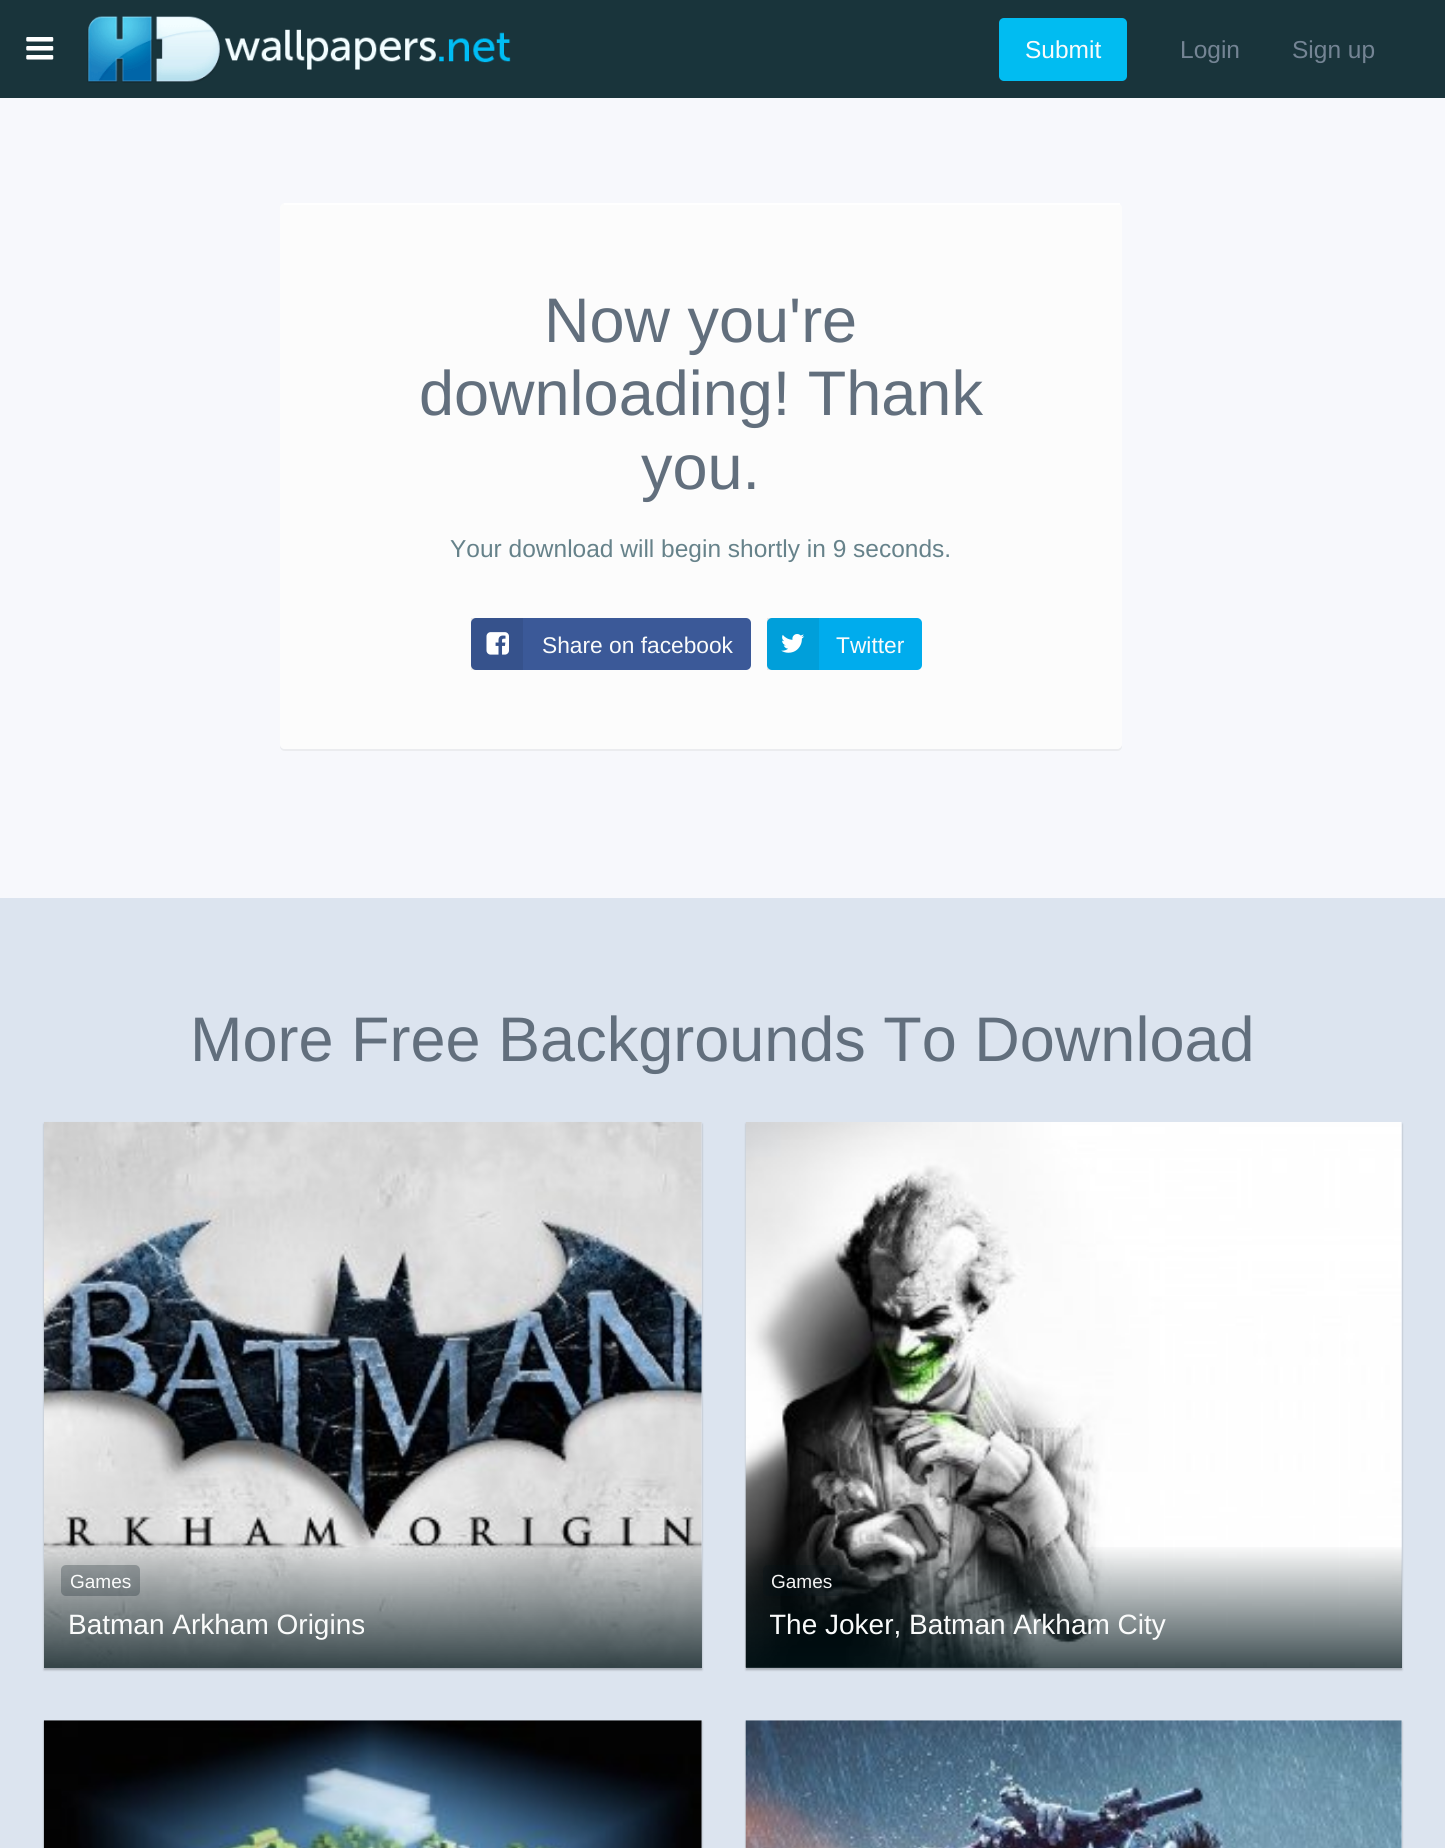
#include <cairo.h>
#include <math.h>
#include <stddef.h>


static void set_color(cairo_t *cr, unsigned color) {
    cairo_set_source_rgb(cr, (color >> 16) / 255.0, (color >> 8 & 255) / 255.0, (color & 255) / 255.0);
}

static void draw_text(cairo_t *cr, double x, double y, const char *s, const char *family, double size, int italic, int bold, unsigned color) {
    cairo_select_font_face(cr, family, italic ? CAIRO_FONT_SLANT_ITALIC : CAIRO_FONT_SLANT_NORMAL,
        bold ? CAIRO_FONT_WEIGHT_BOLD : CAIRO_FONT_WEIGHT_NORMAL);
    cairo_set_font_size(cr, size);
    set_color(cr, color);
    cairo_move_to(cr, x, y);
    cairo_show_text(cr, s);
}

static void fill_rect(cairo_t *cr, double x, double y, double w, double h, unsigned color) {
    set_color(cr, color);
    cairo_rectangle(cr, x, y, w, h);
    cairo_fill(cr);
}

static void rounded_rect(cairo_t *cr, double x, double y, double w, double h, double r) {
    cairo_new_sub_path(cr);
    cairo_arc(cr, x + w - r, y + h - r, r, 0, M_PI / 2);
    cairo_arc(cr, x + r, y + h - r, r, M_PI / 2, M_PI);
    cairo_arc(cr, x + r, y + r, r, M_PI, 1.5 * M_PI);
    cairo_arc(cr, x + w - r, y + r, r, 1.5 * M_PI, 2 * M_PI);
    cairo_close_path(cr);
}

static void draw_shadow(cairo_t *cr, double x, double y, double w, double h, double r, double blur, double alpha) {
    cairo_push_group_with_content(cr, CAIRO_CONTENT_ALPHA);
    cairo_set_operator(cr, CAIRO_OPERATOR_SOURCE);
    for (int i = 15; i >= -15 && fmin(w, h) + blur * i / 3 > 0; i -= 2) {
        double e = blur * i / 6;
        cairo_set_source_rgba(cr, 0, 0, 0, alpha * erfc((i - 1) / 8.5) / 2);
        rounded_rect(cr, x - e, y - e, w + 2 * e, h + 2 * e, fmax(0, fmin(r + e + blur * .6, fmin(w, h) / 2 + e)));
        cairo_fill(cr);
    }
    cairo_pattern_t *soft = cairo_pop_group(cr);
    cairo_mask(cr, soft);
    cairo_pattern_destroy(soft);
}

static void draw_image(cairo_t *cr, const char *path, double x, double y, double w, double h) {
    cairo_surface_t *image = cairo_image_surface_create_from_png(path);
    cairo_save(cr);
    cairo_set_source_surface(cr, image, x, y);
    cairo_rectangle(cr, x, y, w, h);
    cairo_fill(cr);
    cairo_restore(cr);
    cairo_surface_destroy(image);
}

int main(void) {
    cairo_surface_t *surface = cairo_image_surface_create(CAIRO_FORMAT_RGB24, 1445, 1848);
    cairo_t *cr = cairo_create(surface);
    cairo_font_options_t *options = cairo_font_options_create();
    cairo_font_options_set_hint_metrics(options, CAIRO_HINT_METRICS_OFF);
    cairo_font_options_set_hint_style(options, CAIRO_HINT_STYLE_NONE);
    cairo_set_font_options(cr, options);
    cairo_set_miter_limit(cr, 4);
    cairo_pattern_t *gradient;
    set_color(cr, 0xF7F8FC);
    cairo_paint(cr);
    fill_rect(cr, 0, 0, 1445, 98, 0x19343B);
    draw_image(cr, "assets/img1.png", 26, 37, 28, 23);
    draw_image(cr, "assets/img2.png", 87, 16, 424, 67);
    set_color(cr, 0x01BCF1);
    rounded_rect(cr, 999, 18, 128, 63, 5);
    cairo_fill(cr);
    draw_text(cr, 1025, 58, "Submit", "Liberation Sans", 24.5, 0, 0, 0xFAFBFB);
    draw_text(cr, 1180, 58, "Login", "Liberation Sans", 24.5, 0, 0, 0x748494);
    draw_text(cr, 1292, 58, "Sign up", "Liberation Sans", 24.5, 0, 0, 0x748494);
    set_color(cr, 0xEBECEF);
    cairo_new_path(cr);
    cairo_move_to(cr, 280, 744);
    cairo_line_to(cr, 280, 746);
    cairo_curve_to(cr, 280, 749, 282, 751, 285, 751);
    cairo_line_to(cr, 1117, 751);
    cairo_curve_to(cr, 1120, 751, 1122, 749, 1122, 746);
    cairo_line_to(cr, 1122, 208);
    cairo_line_to(cr, 1122, 744);
    cairo_curve_to(cr, 1122, 747, 1119, 749, 1116, 749);
    cairo_line_to(cr, 285, 749);
    cairo_curve_to(cr, 282, 749, 280, 747, 280, 744);
    cairo_close_path(cr);
    cairo_fill(cr);
    set_color(cr, 0xFCFCFC);
    rounded_rect(cr, 280, 203, 842, 546, 5);
    cairo_fill(cr);
    fill_rect(cr, 284, 203, 836, 2, 0xFFFFFF);
    draw_text(cr, 544, 342, "Now you're", "Liberation Sans", 63, 0, 0, 0x626F7D);
    draw_text(cr, 419, 415, "downloading! Thank", "Liberation Sans", 63, 0, 0, 0x626F7D);
    draw_text(cr, 641, 489, "you.", "Liberation Sans", 63, 0, 0, 0x626F7D);
    draw_text(cr, 450, 557, "Your download will begin shortly in 9 seconds.", "Liberation Sans", 24.5, 0, 0, 0x66828A);
    set_color(cr, 0x3B5998);
    rounded_rect(cr, 471, 618, 280, 52, 5);
    cairo_fill(cr);
    cairo_set_source_rgba(cr, 0, 0, 0, 0.08);
    cairo_rectangle(cr, 471, 618, 52, 52);
    cairo_fill(cr);
    draw_image(cr, "assets/img3.png", 486, 632, 23, 23);
    draw_text(cr, 542, 653, "Share on facebook", "Liberation Sans", 22.75, 0, 0, 0xFAFBFB);
    set_color(cr, 0x00ACED);
    rounded_rect(cr, 767, 618, 155, 52, 5);
    cairo_fill(cr);
    cairo_set_source_rgba(cr, 0, 0, 0, 0.08);
    cairo_rectangle(cr, 767, 618, 52, 52);
    cairo_fill(cr);
    draw_image(cr, "assets/img4.png", 781, 634, 24, 19);
    draw_text(cr, 836, 653, "Twitter", "Liberation Sans", 22.75, 0, 0, 0xFAFBFB);
    fill_rect(cr, 0, 898, 1445, 950, 0xDCE4EF);
    draw_text(cr, 190, 1061, "More Free Backgrounds To Download", "Liberation Sans", 63, 0, 0, 0x626F7D);
    set_color(cr, 0x000000);
    draw_shadow(cr, 44, 1124, 658, 546, 0, 1, 0.25);
    fill_rect(cr, 44, 1122, 658, 546, 0xDCE4EF);
    draw_image(cr, "assets/img5.png", 43, 1121, 659, 547);
    gradient = cairo_pattern_create_linear(373, 1668, 373, 1537);
    cairo_pattern_add_color_stop_rgba(gradient, 0, 0, 0.078, 0.098, 0.75);
    cairo_pattern_add_color_stop_rgba(gradient, 0.95, 0, 0.078, 0.098, 0);
    cairo_set_source(cr, gradient);
    cairo_pattern_destroy(gradient);
    cairo_rectangle(cr, 44, 1547, 658, 121);
    cairo_fill(cr);
    cairo_set_source_rgba(cr, 0, 0.078, 0.102, 0.25);
    rounded_rect(cr, 61, 1565, 79, 31, 5);
    cairo_fill(cr);
    draw_text(cr, 70, 1588, "Games", "Liberation Sans", 19, 0, 0, 0xFAFBFB);
    draw_text(cr, 68, 1634, "Batman Arkham Origins", "Liberation Sans", 28, 0, 0, 0xFAFBFB);
    set_color(cr, 0x000000);
    draw_shadow(cr, 746, 1124, 656, 546, 0, 1, 0.25);
    fill_rect(cr, 746, 1122, 656, 546, 0xDCE4EF);
    draw_image(cr, "assets/img6.png", 745, 1122, 657, 546);
    gradient = cairo_pattern_create_linear(1074, 1668, 1074, 1537);
    cairo_pattern_add_color_stop_rgba(gradient, 0, 0, 0.078, 0.098, 0.75);
    cairo_pattern_add_color_stop_rgba(gradient, 0.95, 0, 0.078, 0.098, 0);
    cairo_set_source(cr, gradient);
    cairo_pattern_destroy(gradient);
    cairo_rectangle(cr, 746, 1547, 656, 121);
    cairo_fill(cr);
    cairo_set_source_rgba(cr, 0, 0.078, 0.102, 0.25);
    rounded_rect(cr, 763, 1565, 79, 31, 5);
    cairo_fill(cr);
    draw_text(cr, 771, 1588, "Games", "Liberation Sans", 19, 0, 0, 0xF3F3F3);
    cairo_save(cr);
    cairo_rectangle(cr, 770, 1605, 607, 38);
    cairo_clip(cr);
    draw_text(cr, 769, 1634, "The Joker, Batman Arkham City", "Liberation Sans", 28, 0, 0, 0xFAFBFB);
    cairo_restore(cr);
    set_color(cr, 0x000000);
    draw_shadow(cr, 44, 1722, 658, 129, 0, 1, 0.25);
    fill_rect(cr, 44, 1720, 658, 128, 0xDCE4EF);
    draw_image(cr, "assets/img7.png", 43, 1720, 659, 128);
    set_color(cr, 0x000000);
    draw_shadow(cr, 746, 1722, 656, 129, 0, 1, 0.25);
    fill_rect(cr, 746, 1720, 656, 128, 0xDCE4EF);
    draw_image(cr, "assets/img8.png", 745, 1720, 657, 128);
    cairo_surface_write_to_png(surface, "output.png");
    cairo_font_options_destroy(options);
    cairo_destroy(cr);
    cairo_surface_destroy(surface);
    return 0;
}
